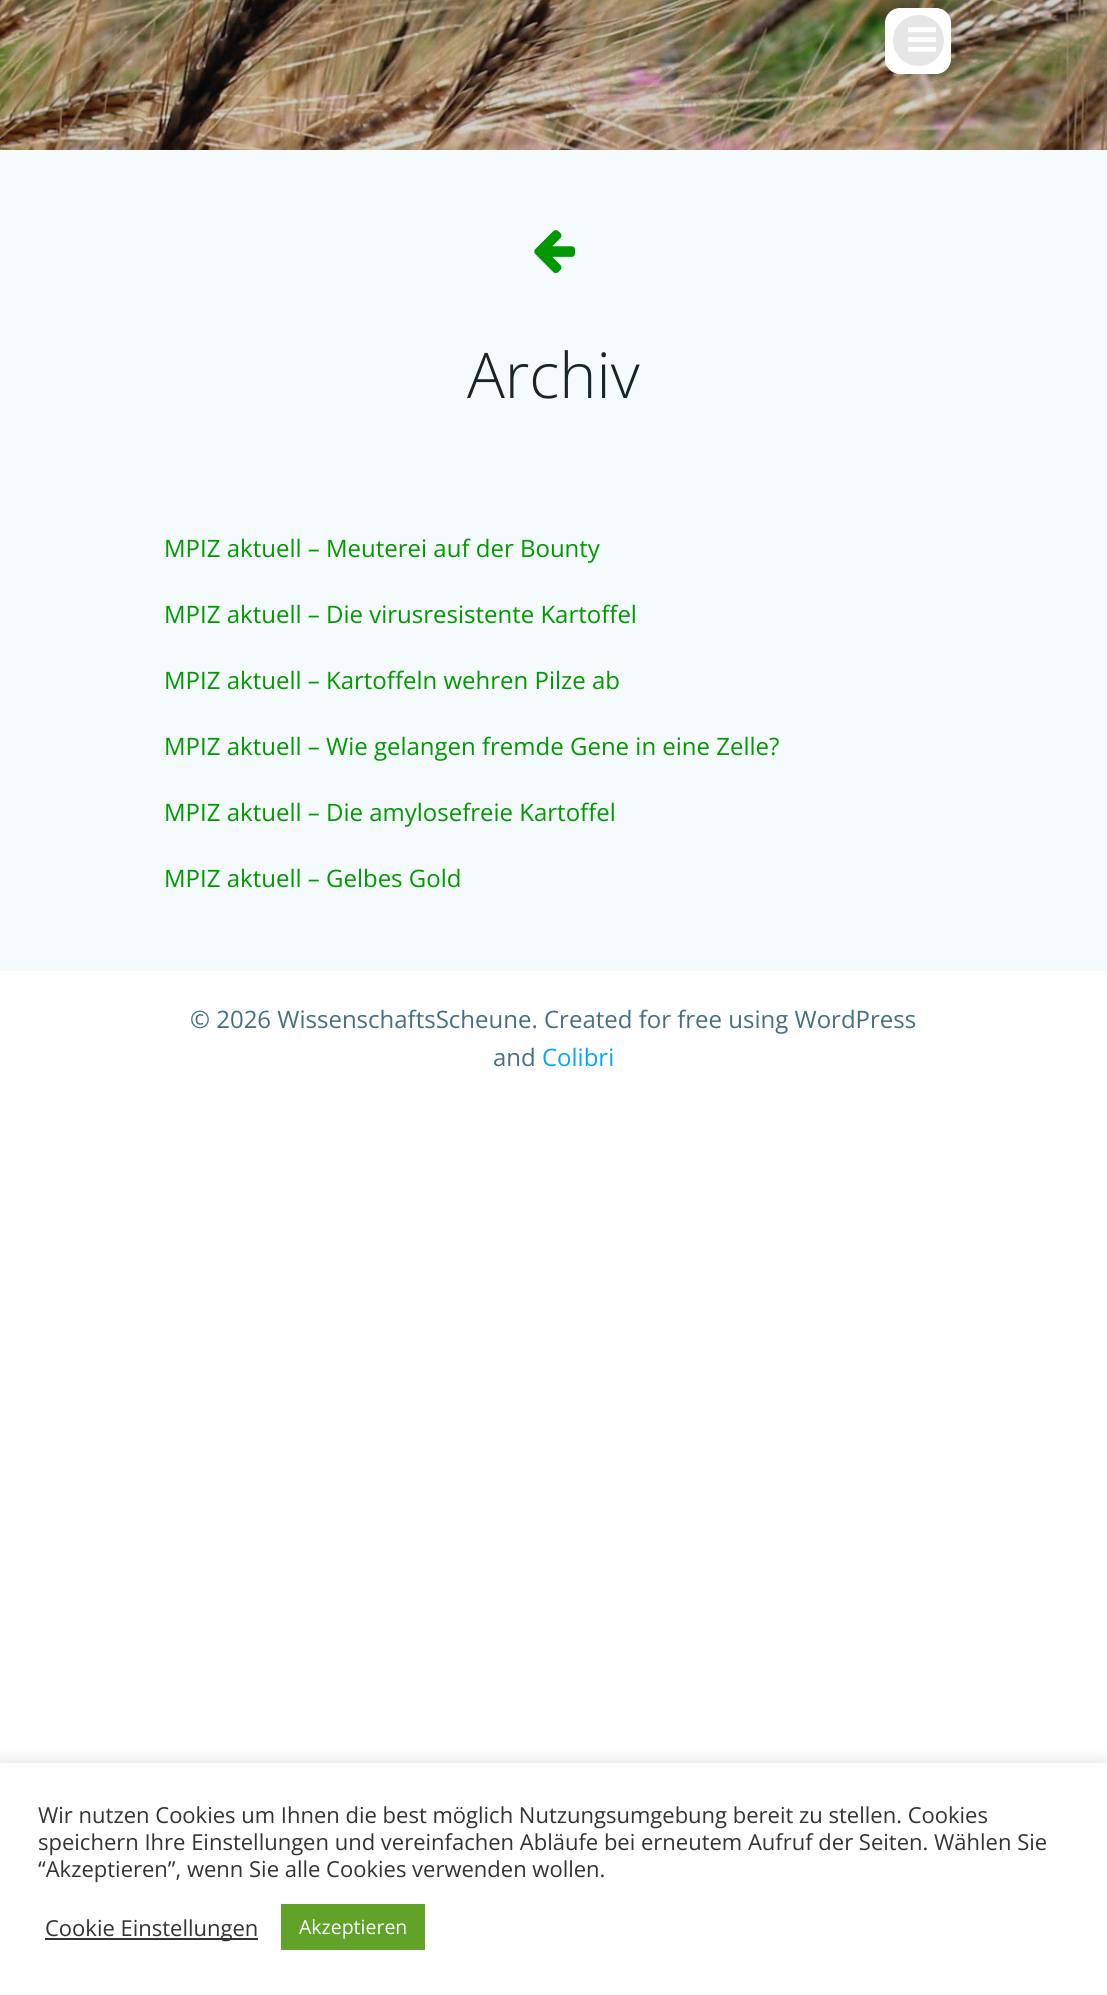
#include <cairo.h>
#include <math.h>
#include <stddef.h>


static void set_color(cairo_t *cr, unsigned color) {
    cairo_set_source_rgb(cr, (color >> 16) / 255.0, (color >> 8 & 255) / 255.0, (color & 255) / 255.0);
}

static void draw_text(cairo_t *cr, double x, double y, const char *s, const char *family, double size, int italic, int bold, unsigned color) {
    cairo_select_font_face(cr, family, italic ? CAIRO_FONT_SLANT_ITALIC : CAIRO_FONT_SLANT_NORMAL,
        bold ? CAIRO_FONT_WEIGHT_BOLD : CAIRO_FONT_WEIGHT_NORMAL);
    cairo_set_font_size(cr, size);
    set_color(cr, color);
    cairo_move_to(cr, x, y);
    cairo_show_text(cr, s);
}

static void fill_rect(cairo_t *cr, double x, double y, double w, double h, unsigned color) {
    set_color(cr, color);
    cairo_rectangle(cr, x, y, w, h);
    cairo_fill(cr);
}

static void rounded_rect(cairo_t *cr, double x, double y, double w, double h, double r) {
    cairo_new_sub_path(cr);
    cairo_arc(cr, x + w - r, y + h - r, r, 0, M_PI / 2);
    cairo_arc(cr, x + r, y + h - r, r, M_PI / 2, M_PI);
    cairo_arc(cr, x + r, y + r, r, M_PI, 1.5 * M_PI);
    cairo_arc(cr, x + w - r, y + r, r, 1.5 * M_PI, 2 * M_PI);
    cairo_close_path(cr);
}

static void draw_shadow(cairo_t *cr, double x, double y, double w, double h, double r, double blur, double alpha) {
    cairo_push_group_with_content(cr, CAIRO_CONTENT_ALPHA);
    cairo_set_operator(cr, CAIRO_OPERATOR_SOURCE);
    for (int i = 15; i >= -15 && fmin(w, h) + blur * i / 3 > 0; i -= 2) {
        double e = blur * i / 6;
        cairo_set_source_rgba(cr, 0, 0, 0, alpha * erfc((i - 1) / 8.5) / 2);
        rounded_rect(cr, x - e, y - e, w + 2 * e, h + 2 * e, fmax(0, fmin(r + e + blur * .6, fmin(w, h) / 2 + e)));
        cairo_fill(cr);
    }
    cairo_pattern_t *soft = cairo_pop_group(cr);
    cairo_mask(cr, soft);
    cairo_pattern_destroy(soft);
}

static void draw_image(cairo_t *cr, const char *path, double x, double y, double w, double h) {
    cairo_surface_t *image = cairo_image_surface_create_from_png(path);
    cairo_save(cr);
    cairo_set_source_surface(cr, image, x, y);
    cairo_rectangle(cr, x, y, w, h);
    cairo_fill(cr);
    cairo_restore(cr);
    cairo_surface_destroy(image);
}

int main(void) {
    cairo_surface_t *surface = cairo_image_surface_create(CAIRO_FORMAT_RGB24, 1107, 1995);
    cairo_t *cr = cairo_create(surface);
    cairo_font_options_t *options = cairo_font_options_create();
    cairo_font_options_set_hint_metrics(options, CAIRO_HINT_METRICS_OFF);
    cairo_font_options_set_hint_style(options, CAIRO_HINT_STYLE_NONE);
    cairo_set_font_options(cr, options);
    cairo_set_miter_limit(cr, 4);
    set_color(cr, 0xFFFFFF);
    cairo_paint(cr);
    draw_image(cr, "assets/img1.png", 0, 0, 1107, 150);
    set_color(cr, 0xFFFFFF);
    rounded_rect(cr, 885, 8, 66, 66, 15);
    cairo_fill(cr);
    set_color(cr, 0xE6E6E6);
    cairo_arc(cr, 918.5, 40.5, 25.5, 0, 2 * M_PI);
    cairo_fill(cr);
    draw_image(cr, "assets/img2.png", 908, 27, 28, 25);
    fill_rect(cr, 0, 150, 1107, 821, 0xF5FAFD);
    draw_image(cr, "assets/img3.png", 534, 230, 41, 44);
    draw_text(cr, 467, 398, "Archiv", "Open Sans Light", 63, 0, 0, 0x17252A);
    draw_text(cr, 164, 557, "MPIZ aktuell – Meuterei auf der Bounty", "Open Sans", 24, 0, 0, 0x029900);
    draw_text(cr, 164, 623, "MPIZ aktuell – Die virusresistente Kartoffel", "Open Sans", 24, 0, 0, 0x029900);
    draw_text(cr, 164, 689, "MPIZ aktuell – Kartoffeln wehren Pilze ab", "Open Sans", 24, 0, 0, 0x029900);
    draw_text(cr, 164, 755, "MPIZ aktuell – Wie gelangen fremde Gene in eine Zelle?", "Open Sans", 24, 0, 0, 0x029900);
    draw_text(cr, 164, 821, "MPIZ aktuell – Die amylosefreie Kartoffel", "Open Sans", 24, 0, 0, 0x029900);
    draw_text(cr, 164, 887, "MPIZ aktuell – Gelbes Gold", "Open Sans", 24, 0, 0, 0x029900);
    draw_text(cr, 190, 1028, "© 2026 WissenschaftsScheune. Created for free using WordPress", "Open Sans", 24, 0, 0, 0x46707F);
    draw_text(cr, 493, 1066, "and", "Open Sans", 24, 0, 0, 0x46707F);
    draw_text(cr, 542, 1066, "Colibri", "Open Sans", 24, 0, 0, 0x03A9F4);
    set_color(cr, 0xACABAB);
    draw_shadow(cr, 0, 1761, 1107, 233, 0, 7.5, 0.3);
    fill_rect(cr, 0, 1763, 1107, 232, 0xFFFFFF);
    draw_text(cr, 38, 1823, "Wir nutzen Cookies um Ihnen die best möglich Nutzungsumgebung bereit zu stellen. Cookies", "Open Sans", 22, 0, 0, 0x333333);
    draw_text(cr, 38, 1850, "speichern Ihre Einstellungen und vereinfachen Abläufe bei erneutem Aufruf der Seiten. Wählen Sie", "Open Sans", 22, 0, 0, 0x333333);
    draw_text(cr, 38, 1877, "“Akzeptieren”, wenn Sie alle Cookies verwenden wollen.", "Open Sans", 22, 0, 0, 0x333333);
    fill_rect(cr, 45, 1938, 213, 2, 0x333333);
    draw_text(cr, 45, 1936, "Cookie Einstellungen", "Open Sans", 22, 0, 0, 0x333333);
    fill_rect(cr, 281, 1904, 144, 46, 0x61A229);
    draw_text(cr, 299, 1934, "Akzeptieren", "Open Sans", 19.5, 0, 0, 0xFFFFFF);
    cairo_surface_write_to_png(surface, "output.png");
    cairo_font_options_destroy(options);
    cairo_destroy(cr);
    cairo_surface_destroy(surface);
    return 0;
}
